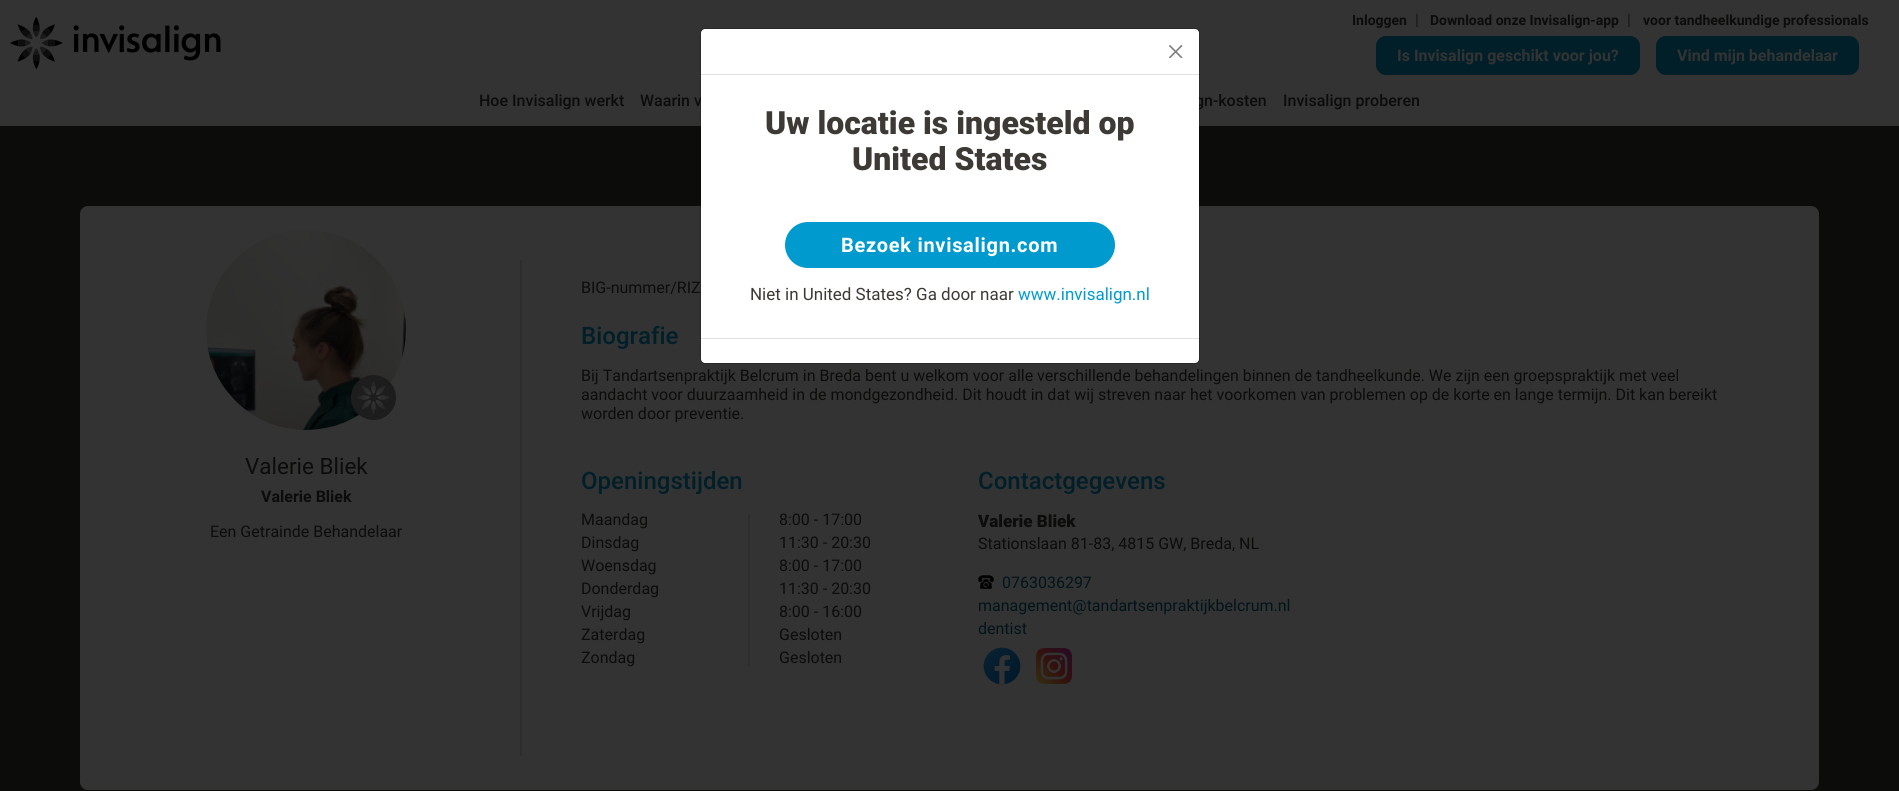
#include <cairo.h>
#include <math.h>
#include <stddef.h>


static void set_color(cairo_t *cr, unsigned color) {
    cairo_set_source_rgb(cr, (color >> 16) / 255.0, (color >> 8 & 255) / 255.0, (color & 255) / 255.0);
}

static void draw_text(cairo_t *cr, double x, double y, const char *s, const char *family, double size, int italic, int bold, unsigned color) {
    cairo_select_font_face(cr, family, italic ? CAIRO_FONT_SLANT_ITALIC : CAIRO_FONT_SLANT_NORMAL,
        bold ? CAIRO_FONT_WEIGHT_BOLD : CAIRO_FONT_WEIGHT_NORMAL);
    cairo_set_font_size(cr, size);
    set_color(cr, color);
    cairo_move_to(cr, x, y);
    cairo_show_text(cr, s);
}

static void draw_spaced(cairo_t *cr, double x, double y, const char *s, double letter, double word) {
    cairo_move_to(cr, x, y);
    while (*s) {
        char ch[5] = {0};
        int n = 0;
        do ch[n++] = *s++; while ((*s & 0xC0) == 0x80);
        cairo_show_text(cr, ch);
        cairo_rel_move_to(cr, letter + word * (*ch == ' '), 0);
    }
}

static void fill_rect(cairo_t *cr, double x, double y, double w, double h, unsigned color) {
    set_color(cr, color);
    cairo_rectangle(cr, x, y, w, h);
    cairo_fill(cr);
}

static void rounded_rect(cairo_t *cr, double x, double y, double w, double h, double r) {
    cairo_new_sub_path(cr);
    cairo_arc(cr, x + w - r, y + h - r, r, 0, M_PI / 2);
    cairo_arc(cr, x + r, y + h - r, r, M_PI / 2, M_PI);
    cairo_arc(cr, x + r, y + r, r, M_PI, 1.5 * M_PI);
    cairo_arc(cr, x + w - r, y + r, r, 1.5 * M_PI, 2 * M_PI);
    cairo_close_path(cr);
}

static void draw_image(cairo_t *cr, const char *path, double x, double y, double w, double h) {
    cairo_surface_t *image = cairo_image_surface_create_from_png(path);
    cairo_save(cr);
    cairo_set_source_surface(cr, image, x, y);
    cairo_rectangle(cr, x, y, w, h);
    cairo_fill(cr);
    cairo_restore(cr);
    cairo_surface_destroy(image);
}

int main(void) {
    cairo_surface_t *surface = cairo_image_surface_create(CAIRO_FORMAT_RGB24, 1899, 791);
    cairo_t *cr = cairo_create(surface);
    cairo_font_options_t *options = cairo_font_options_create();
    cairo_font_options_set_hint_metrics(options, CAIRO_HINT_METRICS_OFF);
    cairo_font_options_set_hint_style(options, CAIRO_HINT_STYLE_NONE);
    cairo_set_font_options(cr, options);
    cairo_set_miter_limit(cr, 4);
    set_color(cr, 0x333333);
    cairo_paint(cr);
    draw_text(cr, 1352, 25, "Inloggen", "Roboto", 14, 0, 1, 0x0C0C0B);
    draw_text(cr, 1415, 25, "|", "Roboto", 16, 0, 0, 0x161717);
    draw_text(cr, 1430, 25, "Download onze Invisalign-app", "Roboto", 14, 0, 1, 0x0C0C0B);
    draw_text(cr, 1627, 25, "|", "Roboto", 16, 0, 0, 0x161717);
    draw_text(cr, 1643, 25, "voor tandheelkundige professionals", "Roboto", 14, 0, 1, 0x0C0C0B);
    set_color(cr, 0x001F29);
    rounded_rect(cr, 1376.5, 36.5, 263, 38, 9.5);
    cairo_fill_preserve(cr);
    cairo_set_line_width(cr, 1);
    cairo_stroke(cr);
    draw_text(cr, 1397, 61, "Is Invisalign geschikt voor jou?", "Roboto", 16, 0, 1, 0x333333);
    set_color(cr, 0x001F29);
    rounded_rect(cr, 1656.5, 36.5, 202, 38, 9.5);
    cairo_fill_preserve(cr);
    cairo_stroke(cr);
    draw_text(cr, 1677, 61, "Vind mijn behandelaar", "Roboto", 16, 0, 1, 0x333333);
    draw_image(cr, "assets/img1.png", 10, 16, 211, 54);
    draw_text(cr, 479, 106, "Hoe Invisalign werkt", "Roboto Medium", 16, 0, 0, 0x0C0C0B);
    draw_text(cr, 640, 106, "Waarin v", "Roboto Medium", 16, 0, 0, 0x0C0C0B);
    draw_text(cr, 1195, 106, "gn-kosten", "Roboto Medium", 16, 0, 0, 0x0C0C0B);
    draw_text(cr, 1283, 106, "Invisalign proberen", "Roboto Medium", 16, 0, 0, 0x0C0C0B);
    fill_rect(cr, 0, 126, 1899, 665, 0x0C0C0B);
    set_color(cr, 0x333333);
    rounded_rect(cr, 80, 206, 1739, 584, 8);
    cairo_fill(cr);
    draw_image(cr, "assets/img2.png", 206, 230, 200, 200);
    draw_image(cr, "assets/img3.png", 351, 375, 45, 45);
    draw_text(cr, 245, 474, "Valerie Bliek", "Roboto", 22.5, 0, 0, 0x0C0C0B);
    draw_text(cr, 261, 502, "Valerie Bliek", "Roboto", 16, 0, 1, 0x0C0C0B);
    draw_text(cr, 210, 537, "Een Getrainde Behandelaar", "Roboto", 16, 0, 0, 0x0C0C0B);
    fill_rect(cr, 520, 260, 2, 496, 0x2C2D2E);
    draw_text(cr, 581, 293, "BIG-nummer/RIZ", "Roboto", 16, 0, 0, 0x0C0C0B);
    draw_text(cr, 581, 344, "Biografie", "Roboto Medium", 24, 0, 0, 0x001F29);
    draw_text(cr, 581, 381, "Bij Tandartsenpraktijk Belcrum in Breda bent u welkom voor alle verschillende behandelingen binnen de tandheelkunde. We zijn een groepspraktijk met veel", "Roboto", 16, 0, 0, 0x0C0C0B);
    draw_text(cr, 581, 400, "aandacht voor duurzaamheid in de mondgezondheid. Dit houdt in dat wij streven naar het voorkomen van problemen op de korte en lange termijn. Dit kan bereikt", "Roboto", 16, 0, 0, 0x0C0C0B);
    draw_text(cr, 581, 419, "worden door preventie.", "Roboto", 16, 0, 0, 0x0C0C0B);
    draw_text(cr, 581, 489, "Openingstijden", "Roboto Medium", 24, 0, 0, 0x001F29);
    draw_text(cr, 581, 525, "Maandag", "Roboto", 16, 0, 0, 0x0C0C0B);
    draw_text(cr, 779, 525, "8:00 - 17:00", "Roboto", 16, 0, 0, 0x0C0C0B);
    fill_rect(cr, 748, 514, 2, 153, 0x2C2D2E);
    draw_text(cr, 581, 548, "Dinsdag", "Roboto", 16, 0, 0, 0x0C0C0B);
    draw_text(cr, 779, 548, "11:30 - 20:30", "Roboto", 16, 0, 0, 0x0C0C0B);
    draw_text(cr, 581, 571, "Woensdag", "Roboto", 16, 0, 0, 0x0C0C0B);
    draw_text(cr, 779, 571, "8:00 - 17:00", "Roboto", 16, 0, 0, 0x0C0C0B);
    draw_text(cr, 581, 594, "Donderdag", "Roboto", 16, 0, 0, 0x0C0C0B);
    draw_text(cr, 779, 594, "11:30 - 20:30", "Roboto", 16, 0, 0, 0x0C0C0B);
    draw_text(cr, 581, 617, "Vrijdag", "Roboto", 16, 0, 0, 0x0C0C0B);
    draw_text(cr, 779, 617, "8:00 - 16:00", "Roboto", 16, 0, 0, 0x0C0C0B);
    draw_text(cr, 581, 640, "Zaterdag", "Roboto", 16, 0, 0, 0x0C0C0B);
    draw_text(cr, 779, 640, "Gesloten", "Roboto", 16, 0, 0, 0x0C0C0B);
    draw_text(cr, 581, 663, "Zondag", "Roboto", 16, 0, 0, 0x0C0C0B);
    draw_text(cr, 779, 663, "Gesloten", "Roboto", 16, 0, 0, 0x0C0C0B);
    draw_text(cr, 978, 489, "Contactgegevens", "Roboto Medium", 24, 0, 0, 0x001F29);
    draw_text(cr, 978, 527, "Valerie Bliek", "Roboto Black", 17, 0, 0, 0x0C0C0B);
    draw_text(cr, 978, 549, "Stationslaan 81-83, 4815 GW, Breda, NL", "Roboto", 16, 0, 0, 0x0C0C0B);
    draw_image(cr, "assets/img4.png", 978, 575, 16, 14);
    draw_text(cr, 1002, 588, "0763036297", "Roboto", 16, 0, 0, 0x00141A);
    draw_text(cr, 978, 611, "management@tandartsenpraktijkbelcrum.nl", "Roboto", 16, 0, 0, 0x00141A);
    draw_text(cr, 978, 634, "dentist", "Roboto", 16, 0, 0, 0x00141A);
    draw_image(cr, "assets/img5.png", 983, 647, 38, 38);
    draw_image(cr, "assets/img6.png", 1036, 648, 36, 36);
    set_color(cr, 0xFFFFFF);
    rounded_rect(cr, 701, 29, 498, 334, 4);
    cairo_fill(cr);
    rounded_rect(cr, 700.5, 28.5, 499, 335, 4.5);
    cairo_set_source_rgba(cr, 0, 0, 0, 0.2);
    cairo_stroke(cr);
    fill_rect(cr, 701, 74, 498, 1, 0xDEE2E6);
    draw_image(cr, "assets/img7.png", 1169, 45, 14, 13);
    draw_text(cr, 765, 134, "Uw locatie is ingesteld op", "Roboto Black", 32, 0, 0, 0x3D3935);
    draw_text(cr, 852, 170, "United States", "Roboto Black", 32, 0, 0, 0x3D3935);
    set_color(cr, 0x009ACE);
    rounded_rect(cr, 786, 223, 328, 44, 22);
    cairo_fill_preserve(cr);
    cairo_set_line_width(cr, 2);
    cairo_stroke(cr);
    cairo_select_font_face(cr, "Roboto", CAIRO_FONT_SLANT_NORMAL, CAIRO_FONT_WEIGHT_BOLD);
    cairo_set_font_size(cr, 20);
    set_color(cr, 0xFFFFFF);
    draw_spaced(cr, 841, 252, "Bezoek invisalign.com", 0.7, 0);
    draw_text(cr, 750, 300, "Niet in United States? Ga door naar", "Roboto", 17, 0, 0, 0x3D3935);
    draw_text(cr, 1018, 300, "www.invisalign.nl", "Roboto", 17, 0, 0, 0x009ACE);
    fill_rect(cr, 701, 338, 498, 1, 0xDEE2E6);
    cairo_surface_write_to_png(surface, "output.png");
    cairo_font_options_destroy(options);
    cairo_destroy(cr);
    cairo_surface_destroy(surface);
    return 0;
}
